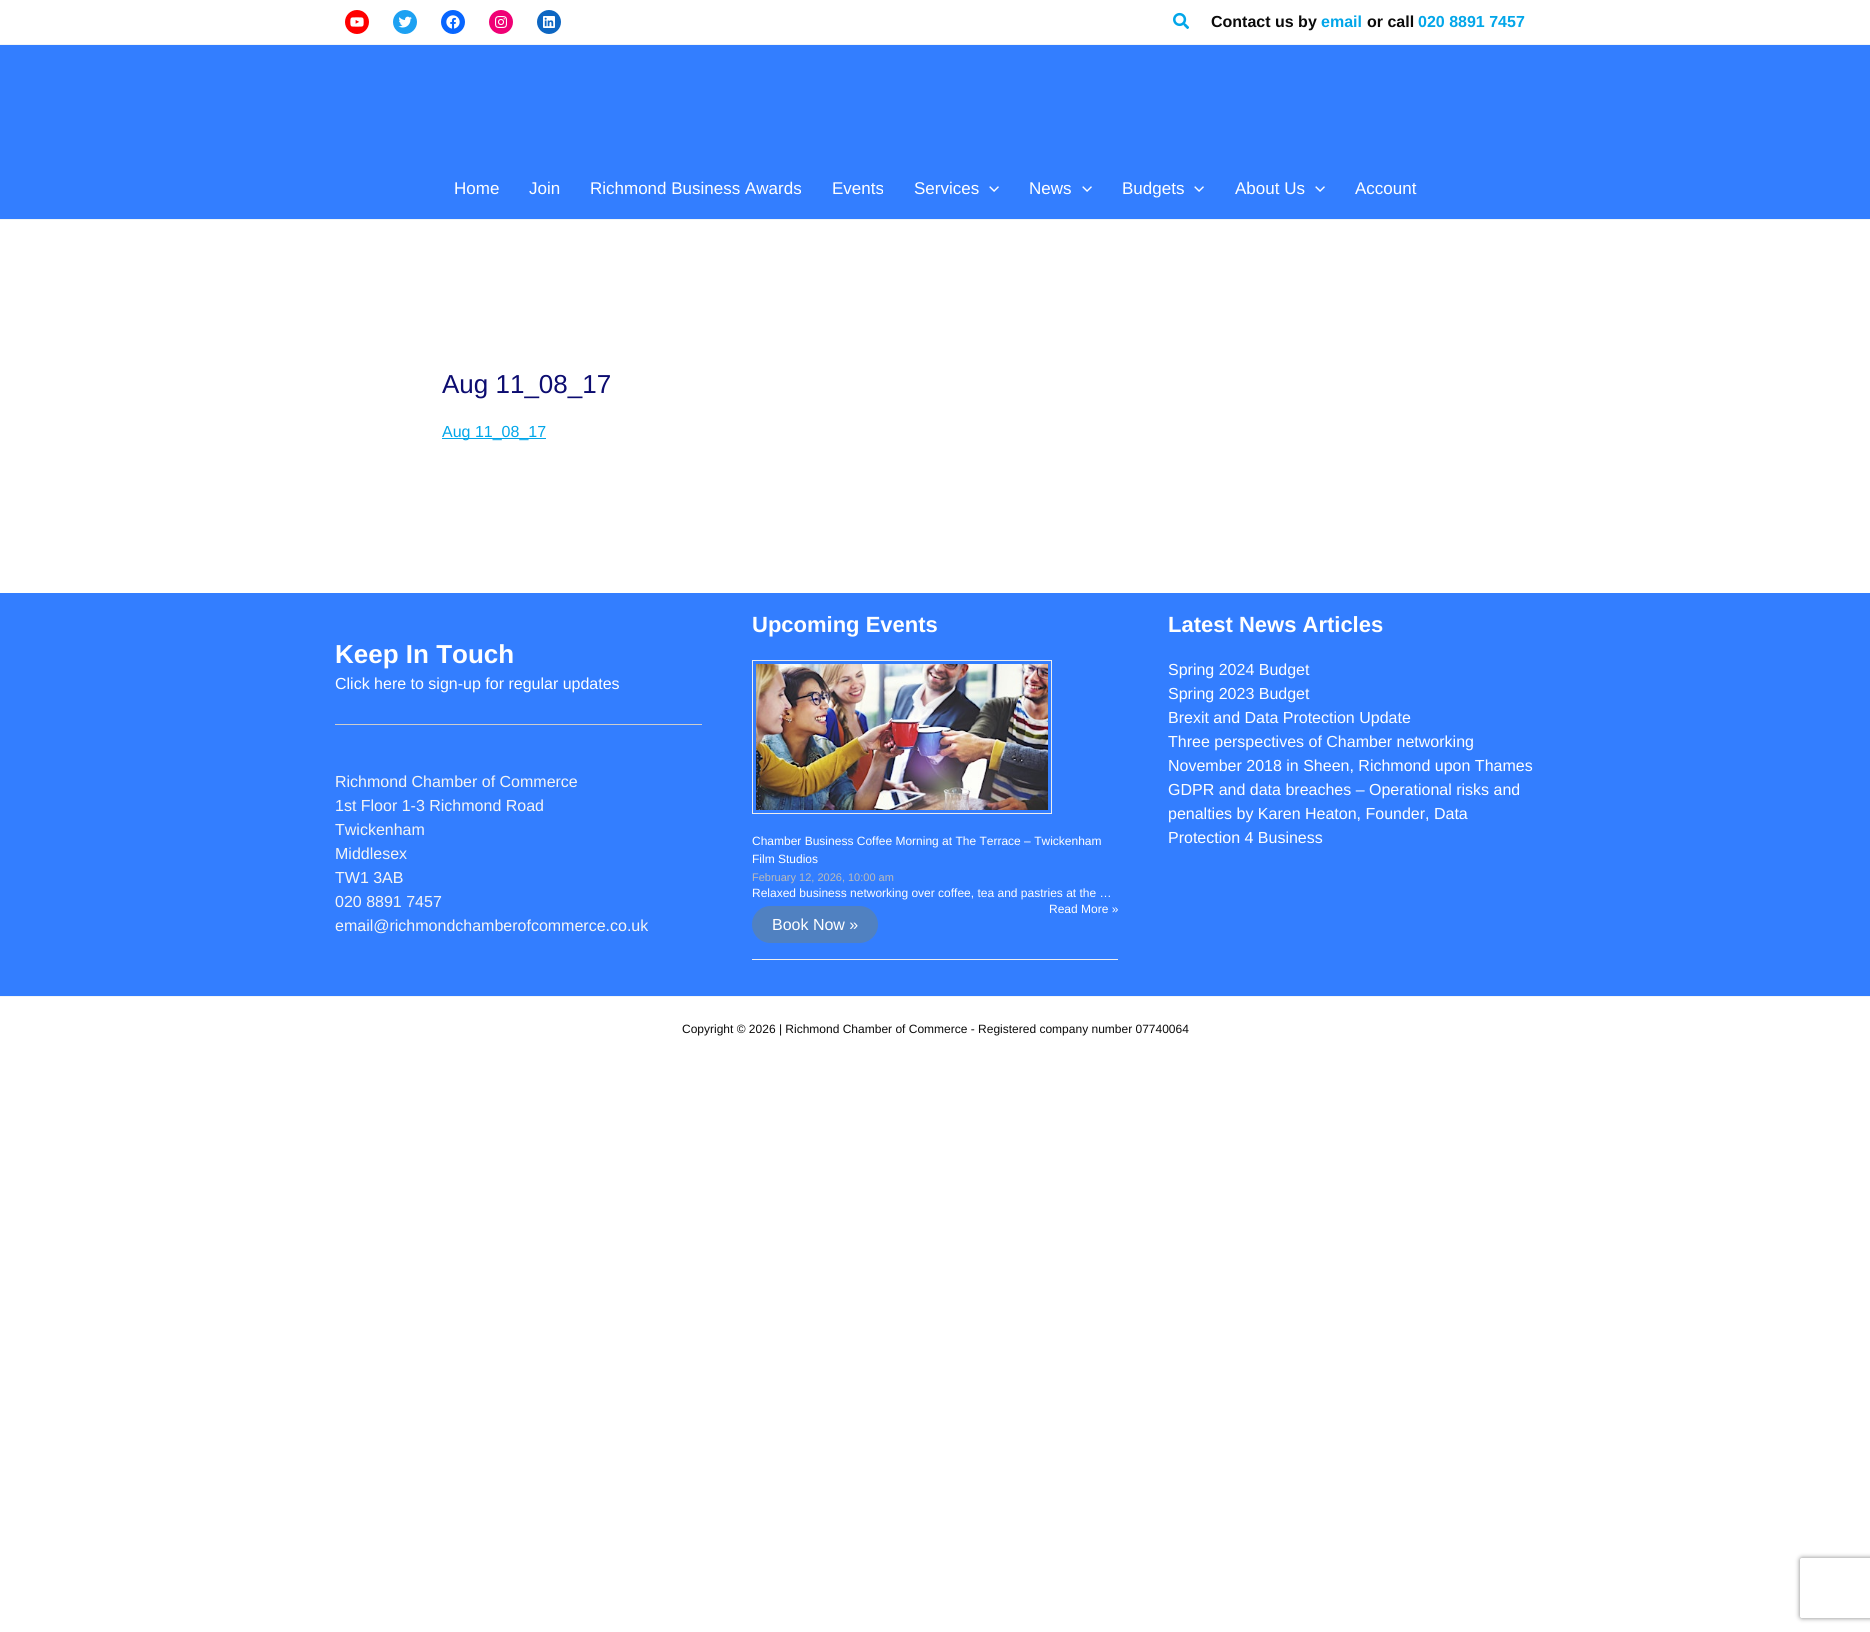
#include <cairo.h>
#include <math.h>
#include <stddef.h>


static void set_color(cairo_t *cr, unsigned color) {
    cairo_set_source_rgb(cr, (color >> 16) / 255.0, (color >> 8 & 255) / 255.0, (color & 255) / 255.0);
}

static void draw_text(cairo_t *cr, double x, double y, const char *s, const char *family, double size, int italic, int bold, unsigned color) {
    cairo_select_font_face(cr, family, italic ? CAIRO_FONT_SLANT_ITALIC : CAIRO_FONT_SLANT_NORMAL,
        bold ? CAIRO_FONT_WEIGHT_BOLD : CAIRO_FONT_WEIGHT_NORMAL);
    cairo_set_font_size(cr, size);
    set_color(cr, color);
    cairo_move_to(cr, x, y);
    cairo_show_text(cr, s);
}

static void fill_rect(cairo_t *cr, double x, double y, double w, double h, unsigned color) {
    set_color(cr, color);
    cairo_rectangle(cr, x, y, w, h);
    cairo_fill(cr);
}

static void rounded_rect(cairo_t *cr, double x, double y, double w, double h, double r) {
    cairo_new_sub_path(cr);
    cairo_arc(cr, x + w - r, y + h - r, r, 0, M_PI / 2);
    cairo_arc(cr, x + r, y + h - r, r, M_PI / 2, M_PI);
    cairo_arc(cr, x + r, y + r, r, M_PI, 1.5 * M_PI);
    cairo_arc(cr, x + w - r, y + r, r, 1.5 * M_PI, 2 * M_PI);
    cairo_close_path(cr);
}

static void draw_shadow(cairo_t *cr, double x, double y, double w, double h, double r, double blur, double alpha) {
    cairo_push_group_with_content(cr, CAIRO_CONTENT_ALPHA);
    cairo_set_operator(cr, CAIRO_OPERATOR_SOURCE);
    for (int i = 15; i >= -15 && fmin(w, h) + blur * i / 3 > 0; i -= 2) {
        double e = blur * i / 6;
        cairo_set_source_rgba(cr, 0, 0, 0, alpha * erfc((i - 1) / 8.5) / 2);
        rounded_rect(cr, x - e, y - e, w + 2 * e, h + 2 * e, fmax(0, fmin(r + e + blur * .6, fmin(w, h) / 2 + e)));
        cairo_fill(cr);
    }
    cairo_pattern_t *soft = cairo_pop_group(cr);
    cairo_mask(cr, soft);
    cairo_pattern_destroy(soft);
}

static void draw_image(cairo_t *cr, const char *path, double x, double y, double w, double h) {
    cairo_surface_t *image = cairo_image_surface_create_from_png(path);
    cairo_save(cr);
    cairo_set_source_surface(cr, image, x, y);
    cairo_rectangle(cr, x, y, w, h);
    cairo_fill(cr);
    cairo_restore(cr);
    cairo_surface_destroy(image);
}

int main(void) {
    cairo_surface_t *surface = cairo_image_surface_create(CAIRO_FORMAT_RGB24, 1870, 1632);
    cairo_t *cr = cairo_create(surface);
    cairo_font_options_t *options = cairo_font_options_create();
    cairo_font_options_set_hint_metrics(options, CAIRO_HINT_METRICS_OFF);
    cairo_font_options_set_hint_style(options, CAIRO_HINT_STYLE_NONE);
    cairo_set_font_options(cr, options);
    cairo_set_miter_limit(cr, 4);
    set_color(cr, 0xFFFFFF);
    cairo_paint(cr);
    fill_rect(cr, 0, 44, 1870, 1, 0xF2F5F7);
    set_color(cr, 0xFF0000);
    cairo_arc(cr, 357, 22, 12, 0, 2 * M_PI);
    cairo_fill(cr);
    draw_image(cr, "assets/img1.png", 350, 17, 14, 10);
    set_color(cr, 0x1DA1F2);
    cairo_arc(cr, 405, 22, 12, 0, 2 * M_PI);
    cairo_fill(cr);
    draw_image(cr, "assets/img2.png", 398, 16, 14, 12);
    set_color(cr, 0x0866FF);
    cairo_arc(cr, 453, 22, 12, 0, 2 * M_PI);
    cairo_fill(cr);
    draw_image(cr, "assets/img3.png", 446, 15, 14, 14);
    set_color(cr, 0xF00075);
    cairo_arc(cr, 501, 22, 12, 0, 2 * M_PI);
    cairo_fill(cr);
    draw_image(cr, "assets/img4.png", 495, 16, 12, 12);
    set_color(cr, 0x0D66C2);
    cairo_arc(cr, 549, 22, 12, 0, 2 * M_PI);
    cairo_fill(cr);
    draw_image(cr, "assets/img5.png", 543, 16, 12, 12);
    draw_image(cr, "assets/img6.png", 1173, 12, 16, 17);
    draw_text(cr, 1211, 27, "Contact us by", "Liberation Sans", 16, 0, 1, 0x0B0B0B);
    draw_text(cr, 1321, 27, "email", "Liberation Sans", 16, 0, 1, 0x02A6E9);
    draw_text(cr, 1367, 27, "or call", "Liberation Sans", 16, 0, 1, 0x0B0B0B);
    draw_text(cr, 1418, 27, "020 8891 7457", "Liberation Sans", 16, 0, 1, 0x02A6E9);
    fill_rect(cr, 0, 45, 1870, 174, 0x337EFF);
    fill_rect(cr, 0, 219, 1870, 1, 0xF2F5F7);
    draw_text(cr, 454, 194, "Home", "Liberation Sans", 17, 0, 0, 0xFFFFFF);
    draw_text(cr, 529, 194, "Join", "Liberation Sans", 17, 0, 0, 0xFFFFFF);
    draw_text(cr, 590, 194, "Richmond Business Awards", "Liberation Sans", 17, 0, 0, 0xFFFFFF);
    draw_text(cr, 832, 194, "Events", "Liberation Sans", 17, 0, 0, 0xFFFFFF);
    draw_text(cr, 914, 194, "Services", "Liberation Sans", 17, 0, 0, 0xFFFFFF);
    draw_image(cr, "assets/img7.png", 989, 186, 10, 6);
    draw_text(cr, 1029, 194, "News", "Liberation Sans", 17, 0, 0, 0xFFFFFF);
    draw_image(cr, "assets/img7.png", 1082, 186, 10, 6);
    draw_text(cr, 1122, 194, "Budgets", "Liberation Sans", 17, 0, 0, 0xFFFFFF);
    draw_image(cr, "assets/img7.png", 1194, 186, 10, 6);
    draw_text(cr, 1235, 194, "About Us", "Liberation Sans", 17, 0, 0, 0xFFFFFF);
    draw_image(cr, "assets/img7.png", 1315, 186, 10, 6);
    draw_text(cr, 1355, 194, "Account", "Liberation Sans", 17, 0, 0, 0xFFFFFF);
    draw_text(cr, 442, 393, "Aug 11_08_17", "Liberation Sans", 26, 0, 0, 0x0C0C70);
    fill_rect(cr, 442, 438, 104, 1, 0x02A6E9);
    draw_text(cr, 442, 437, "Aug 11_08_17", "Liberation Sans", 16, 0, 0, 0x02A6E9);
    fill_rect(cr, 0, 593, 1870, 403, 0x337EFF);
    draw_text(cr, 335, 663, "Keep In Touch", "Liberation Sans", 26, 0, 1, 0xFFFFFF);
    draw_text(cr, 335, 689, "Click here to sign-up for regular updates", "Liberation Sans", 16, 0, 0, 0xFFFFFF);
    fill_rect(cr, 335, 724, 367, 1, 0xCCCCCC);
    draw_text(cr, 335, 787, "Richmond Chamber of Commerce", "Liberation Sans", 16, 0, 0, 0xF5F5F5);
    draw_text(cr, 335, 811, "1st Floor 1-3 Richmond Road", "Liberation Sans", 16, 0, 0, 0xF5F5F5);
    draw_text(cr, 335, 835, "Twickenham", "Liberation Sans", 16, 0, 0, 0xF5F5F5);
    draw_text(cr, 335, 859, "Middlesex", "Liberation Sans", 16, 0, 0, 0xF5F5F5);
    draw_text(cr, 335, 883, "TW1 3AB", "Liberation Sans", 16, 0, 0, 0xF5F5F5);
    draw_text(cr, 335, 907, "020 8891 7457", "Liberation Sans", 16, 0, 0, 0xF5F5F5);
    draw_text(cr, 335, 931, "email@richmondchamberofcommerce.co.uk", "Liberation Sans", 16, 0, 0, 0xF5F5F5);
    draw_text(cr, 752, 632, "Upcoming Events", "Liberation Sans", 22, 0, 1, 0xFFFFFF);
    fill_rect(cr, 752, 959, 366, 1, 0xEEEEEE);
    cairo_rectangle(cr, 752.5, 660.5, 299, 153);
    cairo_set_line_width(cr, 1);
    cairo_stroke(cr);
    draw_image(cr, "assets/img8.png", 756, 664, 292, 146);
    draw_text(cr, 752, 845, "Chamber Business Coffee Morning at The Terrace – Twickenham", "Liberation Sans", 12, 0, 0, 0xFFFFFF);
    draw_text(cr, 752, 863, "Film Studios", "Liberation Sans", 12, 0, 0, 0xFFFFFF);
    draw_text(cr, 752, 881, "February 12, 2026, 10:00 am", "Liberation Sans", 11, 0, 0, 0xBBBBBB);
    draw_text(cr, 752, 897, "Relaxed business networking over coffee, tea and pastries at the …", "Liberation Sans", 12, 0, 0, 0xFFFFFF);
    draw_text(cr, 1049, 913, "Read More »", "Liberation Sans", 12, 0, 0, 0xFFFFFF);
    set_color(cr, 0x5081C1);
    rounded_rect(cr, 752, 906, 126, 37, 18.5);
    cairo_fill(cr);
    draw_text(cr, 772, 930, "Book Now »", "Liberation Sans", 16, 0, 0, 0xFFFFFF);
    draw_text(cr, 1168, 632, "Latest News Articles", "Liberation Sans", 22, 0, 1, 0xFFFFFF);
    draw_text(cr, 1168, 675, "Spring 2024 Budget", "Liberation Sans", 16, 0, 0, 0xFFFFFF);
    draw_text(cr, 1168, 699, "Spring 2023 Budget", "Liberation Sans", 16, 0, 0, 0xFFFFFF);
    draw_text(cr, 1168, 723, "Brexit and Data Protection Update", "Liberation Sans", 16, 0, 0, 0xFFFFFF);
    draw_text(cr, 1168, 747, "Three perspectives of Chamber networking", "Liberation Sans", 16, 0, 0, 0xFFFFFF);
    draw_text(cr, 1168, 771, "November 2018 in Sheen, Richmond upon Thames", "Liberation Sans", 16, 0, 0, 0xFFFFFF);
    draw_text(cr, 1168, 795, "GDPR and data breaches – Operational risks and", "Liberation Sans", 16, 0, 0, 0xFFFFFF);
    draw_text(cr, 1168, 819, "penalties by Karen Heaton, Founder, Data", "Liberation Sans", 16, 0, 0, 0xFFFFFF);
    draw_text(cr, 1168, 843, "Protection 4 Business", "Liberation Sans", 16, 0, 0, 0xFFFFFF);
    fill_rect(cr, 0, 996, 1870, 1, 0xF2F5F7);
    draw_text(cr, 682, 1033, "Copyright © 2026 | Richmond Chamber of Commerce - Registered company number 07740064", "Liberation Sans", 12, 0, 0, 0x0B0B0B);
    cairo_save(cr);
    cairo_set_fill_rule(cr, CAIRO_FILL_RULE_EVEN_ODD);
    cairo_new_path(cr);
    cairo_move_to(cr, 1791, 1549);
    cairo_line_to(cr, 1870, 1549);
    cairo_line_to(cr, 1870, 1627);
    cairo_line_to(cr, 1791, 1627);
    cairo_close_path(cr);
    cairo_move_to(cr, 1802, 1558);
    cairo_line_to(cr, 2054, 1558);
    cairo_curve_to(cr, 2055, 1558, 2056, 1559, 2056, 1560);
    cairo_line_to(cr, 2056, 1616);
    cairo_curve_to(cr, 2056, 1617, 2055, 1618, 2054, 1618);
    cairo_line_to(cr, 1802, 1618);
    cairo_curve_to(cr, 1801, 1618, 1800, 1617, 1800, 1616);
    cairo_line_to(cr, 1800, 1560);
    cairo_curve_to(cr, 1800, 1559, 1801, 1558, 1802, 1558);
    cairo_close_path(cr);
    cairo_clip(cr);
    set_color(cr, 0x808080);
    draw_shadow(cr, 1800, 1558, 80, 60, 2, 2.5, 1);
    cairo_restore(cr);
    cairo_surface_write_to_png(surface, "output.png");
    cairo_font_options_destroy(options);
    cairo_destroy(cr);
    cairo_surface_destroy(surface);
    return 0;
}
